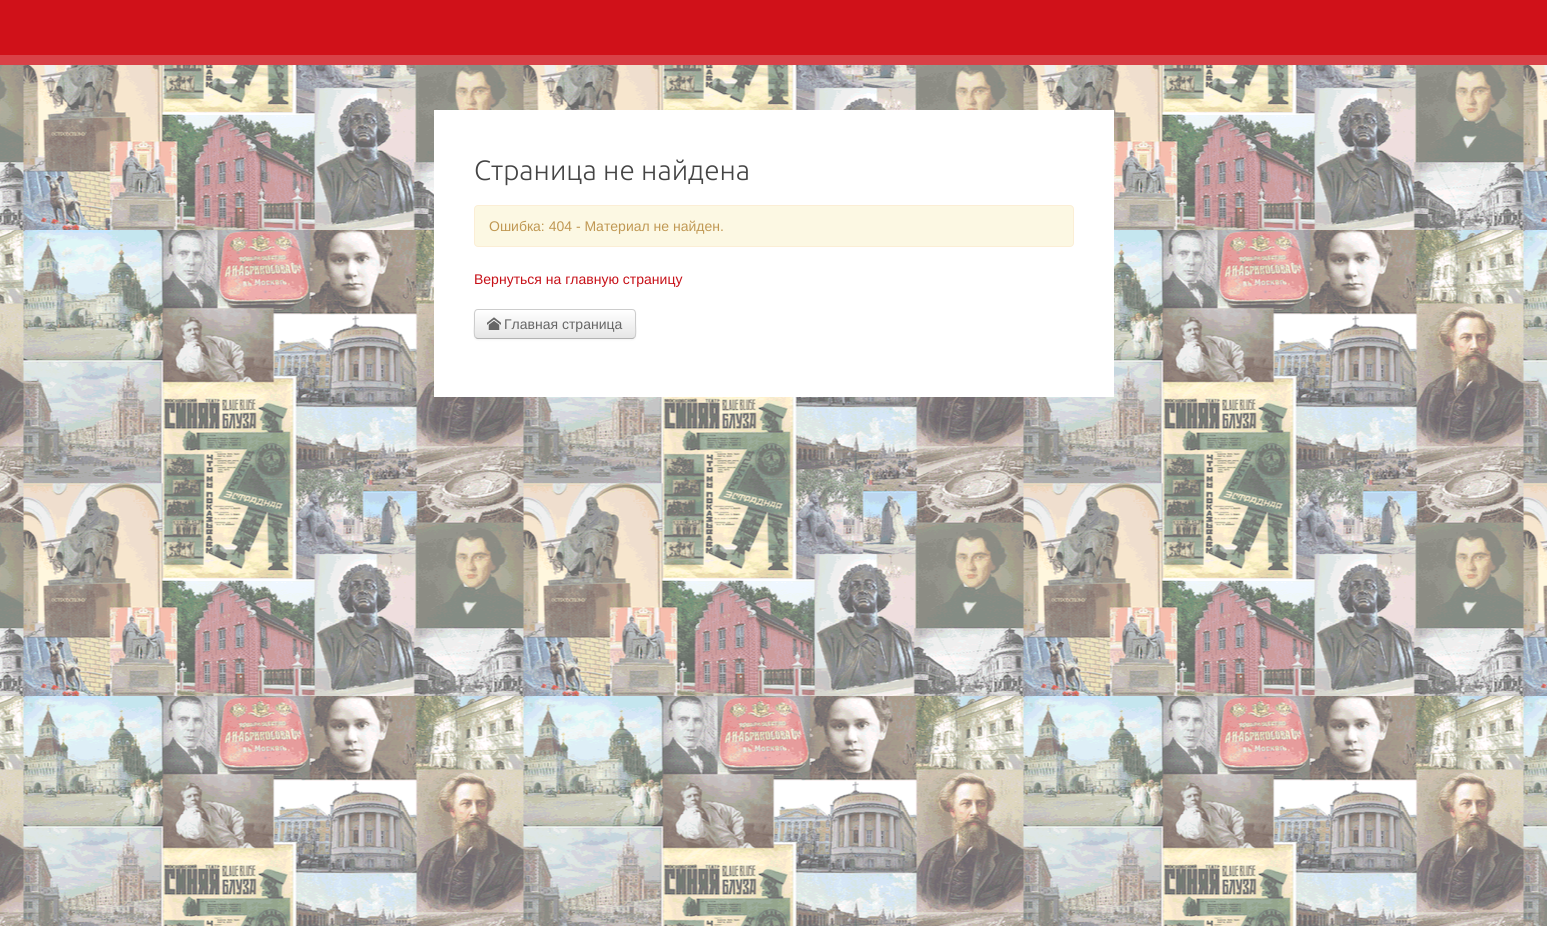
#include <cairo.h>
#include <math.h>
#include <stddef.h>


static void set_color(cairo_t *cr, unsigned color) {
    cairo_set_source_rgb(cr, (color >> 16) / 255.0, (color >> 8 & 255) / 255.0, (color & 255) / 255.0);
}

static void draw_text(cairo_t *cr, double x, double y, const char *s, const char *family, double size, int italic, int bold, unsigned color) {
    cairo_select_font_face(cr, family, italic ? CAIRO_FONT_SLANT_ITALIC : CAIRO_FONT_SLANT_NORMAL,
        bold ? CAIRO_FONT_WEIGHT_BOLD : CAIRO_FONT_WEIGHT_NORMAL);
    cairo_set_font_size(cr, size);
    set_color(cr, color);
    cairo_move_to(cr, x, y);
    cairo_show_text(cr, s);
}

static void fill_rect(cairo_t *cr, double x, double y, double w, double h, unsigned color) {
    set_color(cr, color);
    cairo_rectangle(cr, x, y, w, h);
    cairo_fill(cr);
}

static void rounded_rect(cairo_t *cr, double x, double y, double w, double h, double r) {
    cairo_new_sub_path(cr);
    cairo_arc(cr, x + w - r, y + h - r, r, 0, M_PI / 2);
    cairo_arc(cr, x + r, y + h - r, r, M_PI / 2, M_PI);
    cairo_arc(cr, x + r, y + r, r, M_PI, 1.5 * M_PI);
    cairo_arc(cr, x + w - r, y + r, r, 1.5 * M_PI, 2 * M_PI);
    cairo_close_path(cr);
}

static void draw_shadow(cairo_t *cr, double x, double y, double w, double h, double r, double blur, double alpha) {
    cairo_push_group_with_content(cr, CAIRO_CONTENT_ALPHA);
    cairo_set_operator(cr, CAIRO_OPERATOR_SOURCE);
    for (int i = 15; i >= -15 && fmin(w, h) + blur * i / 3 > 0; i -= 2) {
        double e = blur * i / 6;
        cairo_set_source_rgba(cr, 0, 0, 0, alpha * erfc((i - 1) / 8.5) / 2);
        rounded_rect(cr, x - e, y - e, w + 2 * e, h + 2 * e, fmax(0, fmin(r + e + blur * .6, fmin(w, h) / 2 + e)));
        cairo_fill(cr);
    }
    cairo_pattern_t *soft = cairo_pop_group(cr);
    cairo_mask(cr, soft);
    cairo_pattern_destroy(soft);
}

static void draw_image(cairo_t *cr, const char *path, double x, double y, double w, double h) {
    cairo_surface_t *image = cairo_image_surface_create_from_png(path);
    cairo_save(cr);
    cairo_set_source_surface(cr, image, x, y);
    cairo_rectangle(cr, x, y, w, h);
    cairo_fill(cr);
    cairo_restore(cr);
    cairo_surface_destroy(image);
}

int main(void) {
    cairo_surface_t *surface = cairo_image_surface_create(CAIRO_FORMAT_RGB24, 1547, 926);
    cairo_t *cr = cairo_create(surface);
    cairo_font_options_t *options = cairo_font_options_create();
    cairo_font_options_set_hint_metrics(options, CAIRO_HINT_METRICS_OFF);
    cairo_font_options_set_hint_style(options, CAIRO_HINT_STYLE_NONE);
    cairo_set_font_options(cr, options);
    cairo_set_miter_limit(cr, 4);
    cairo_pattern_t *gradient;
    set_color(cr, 0xFFFFFF);
    cairo_paint(cr);
    draw_image(cr, "assets/img1.png", 0, 65, 1547, 861);
    fill_rect(cr, 0, 0, 1547, 55, 0xD01119);
    fill_rect(cr, 0, 55, 1547, 10, 0xD94147);
    fill_rect(cr, 434, 110, 680, 287, 0xFFFFFF);
    draw_text(cr, 474, 180, "Страница не найдена", "Ubuntu Light", 28, 0, 0, 0x444444);
    set_color(cr, 0xFCF8E3);
    rounded_rect(cr, 474.5, 205.5, 599, 41, 3.5);
    cairo_fill_preserve(cr);
    set_color(cr, 0xFBEED5);
    cairo_set_line_width(cr, 1);
    cairo_stroke(cr);
    draw_text(cr, 489, 231, "Ошибка: 404 - Материал не найден.", "Liberation Sans", 14, 0, 0, 0xC09853);
    draw_text(cr, 474, 284, "Вернуться на главную страницу", "Liberation Sans", 14, 0, 0, 0xC71018);
    set_color(cr, 0x000000);
    draw_shadow(cr, 474, 310, 162, 30, 4, 1, 0.05);
    cairo_save(cr);
    rounded_rect(cr, 474, 309, 162, 30, 4);
    cairo_clip(cr);
    gradient = cairo_pattern_create_linear(555, 310, 555, 338);
    cairo_pattern_add_color_stop_rgba(gradient, 0, 1, 1, 1, 1);
    cairo_pattern_add_color_stop_rgba(gradient, 1, 0.902, 0.902, 0.902, 1);
    cairo_set_source(cr, gradient);
    cairo_pattern_destroy(gradient);
    cairo_rectangle(cr, 474, 310, 162, 28);
    cairo_fill(cr);
    cairo_restore(cr);
    cairo_new_path(cr);
    cairo_move_to(cr, 634.5, 337.5);
    cairo_curve_to(cr, 634, 338, 633, 338.5, 632, 338.5);
    cairo_line_to(cr, 478, 338.5);
    cairo_curve_to(cr, 477, 338.5, 476, 338, 475.5, 337.5);
    set_color(cr, 0xB3B3B3);
    cairo_stroke(cr);
    cairo_new_path(cr);
    cairo_move_to(cr, 475.5, 337.5);
    cairo_curve_to(cr, 473.5, 335.5, 474.5, 327, 474.5, 324);
    cairo_line_to(cr, 474.5, 316.5);
    cairo_curve_to(cr, 474.5, 314, 474, 309.5, 478, 309.5);
    cairo_line_to(cr, 632, 309.5);
    cairo_curve_to(cr, 636, 309.5, 635.5, 314, 635.5, 316.5);
    cairo_line_to(cr, 635.5, 324);
    cairo_curve_to(cr, 635.5, 327, 636.5, 335.5, 634.5, 337.5);
    set_color(cr, 0xCCCCCC);
    cairo_stroke(cr);
    draw_image(cr, "assets/img2.png", 487, 317, 14, 13);
    draw_text(cr, 504, 329, "Главная страница", "Liberation Sans", 14, 0, 0, 0x666666);
    cairo_surface_write_to_png(surface, "output.png");
    cairo_font_options_destroy(options);
    cairo_destroy(cr);
    cairo_surface_destroy(surface);
    return 0;
}
